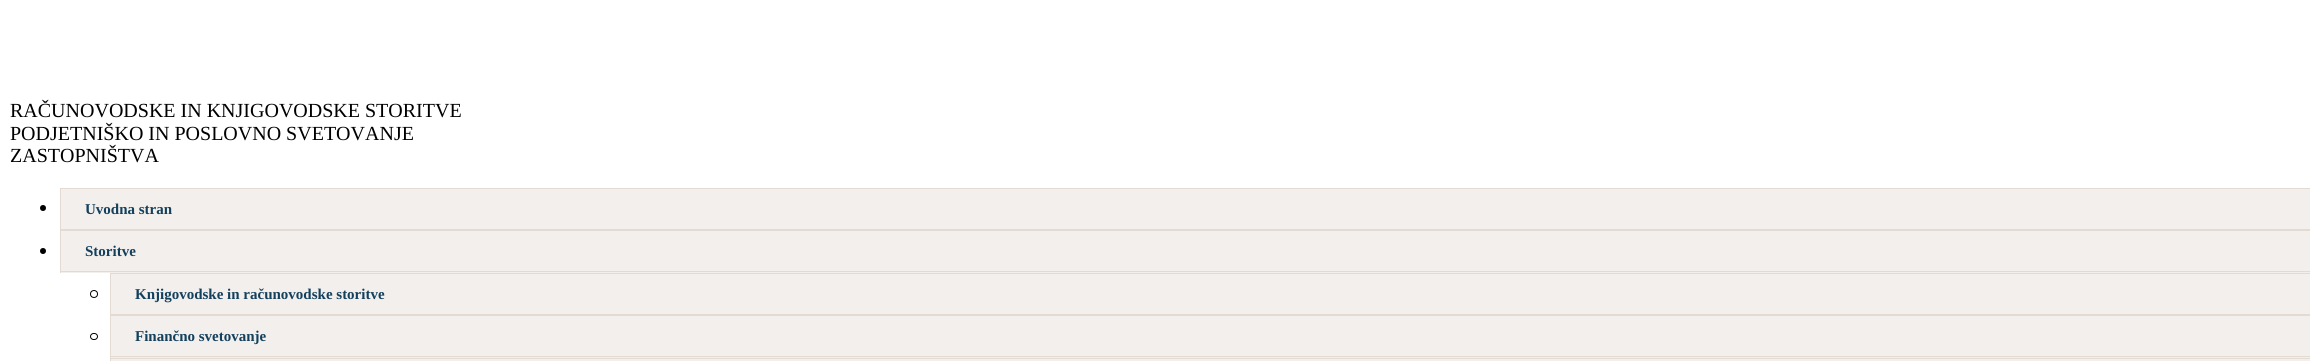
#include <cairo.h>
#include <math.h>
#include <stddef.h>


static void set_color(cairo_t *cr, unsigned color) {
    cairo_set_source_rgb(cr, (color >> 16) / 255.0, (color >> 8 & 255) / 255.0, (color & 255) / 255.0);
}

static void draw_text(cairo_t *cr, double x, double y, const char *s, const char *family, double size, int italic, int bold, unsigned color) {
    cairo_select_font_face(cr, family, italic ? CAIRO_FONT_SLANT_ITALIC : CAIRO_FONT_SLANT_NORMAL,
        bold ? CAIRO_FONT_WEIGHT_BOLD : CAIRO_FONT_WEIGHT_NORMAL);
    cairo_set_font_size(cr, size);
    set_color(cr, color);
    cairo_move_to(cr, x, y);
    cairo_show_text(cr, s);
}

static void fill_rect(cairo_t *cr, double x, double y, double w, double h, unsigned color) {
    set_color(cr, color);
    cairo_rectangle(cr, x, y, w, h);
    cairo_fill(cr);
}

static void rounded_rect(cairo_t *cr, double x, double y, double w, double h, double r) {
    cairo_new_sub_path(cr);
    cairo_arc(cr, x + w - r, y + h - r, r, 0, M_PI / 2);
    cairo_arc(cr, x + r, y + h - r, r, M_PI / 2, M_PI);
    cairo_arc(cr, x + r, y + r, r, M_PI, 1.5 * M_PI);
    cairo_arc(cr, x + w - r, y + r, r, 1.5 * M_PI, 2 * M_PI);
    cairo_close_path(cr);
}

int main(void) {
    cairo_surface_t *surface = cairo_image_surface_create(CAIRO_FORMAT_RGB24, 2320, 361);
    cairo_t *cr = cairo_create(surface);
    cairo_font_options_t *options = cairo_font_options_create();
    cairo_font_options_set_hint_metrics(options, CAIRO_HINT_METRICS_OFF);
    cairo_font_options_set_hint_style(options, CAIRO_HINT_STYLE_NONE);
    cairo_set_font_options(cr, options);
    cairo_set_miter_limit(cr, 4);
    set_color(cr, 0xFFFFFF);
    cairo_paint(cr);
    draw_text(cr, 10, 117, "RAČUNOVODSKE IN KNJIGOVODSKE STORITVE", "Liberation Serif", 20, 0, 0, 0x000000);
    draw_text(cr, 10, 140, "PODJETNIŠKO IN POSLOVNO SVETOVANJE", "Liberation Serif", 20, 0, 0, 0x000000);
    draw_text(cr, 10, 162, "ZASTOPNIŠTVA", "Liberation Serif", 20, 0, 0, 0x000000);
    cairo_new_path(cr);
    cairo_arc(cr, 43, 208, 3, 0, 2 * M_PI);
    cairo_fill(cr);
    fill_rect(cr, 61, 189, 2249, 40, 0xF3EFEC);
    fill_rect(cr, 60, 188, 2250, 1, 0xE3DAD1);
    fill_rect(cr, 60, 229, 2250, 2, 0xE3DAD1);
    fill_rect(cr, 60, 188, 1, 42, 0xE3DAD1);
    draw_text(cr, 85, 214, "Uvodna stran", "Liberation Serif", 15, 0, 1, 0x12405D);
    set_color(cr, 0x000000);
    cairo_new_path(cr);
    cairo_arc(cr, 43, 251, 3, 0, 2 * M_PI);
    cairo_fill(cr);
    fill_rect(cr, 61, 231, 2249, 42, 0xF3EFEC);
    fill_rect(cr, 60, 271, 2250, 1, 0xE3DAD1);
    fill_rect(cr, 60, 230, 1, 43, 0xE3DAD1);
    draw_text(cr, 85, 256, "Storitve", "Liberation Serif", 15, 0, 1, 0x12405D);
    cairo_new_path(cr);
    cairo_arc(cr, 94, 294, 3.5, 0, 2 * M_PI);
    set_color(cr, 0x000000);
    cairo_set_line_width(cr, 1);
    cairo_stroke(cr);
    fill_rect(cr, 111, 274, 2199, 40, 0xF3EFEC);
    fill_rect(cr, 110, 273, 2200, 1, 0xE3DAD1);
    fill_rect(cr, 110, 314, 2200, 2, 0xE3DAD1);
    fill_rect(cr, 110, 273, 1, 42, 0xE3DAD1);
    draw_text(cr, 135, 299, "Knjigovodske in računovodske storitve", "Liberation Serif", 15, 0, 1, 0x12405D);
    rounded_rect(cr, 90.5, 333.5, 7, 6, 3);
    set_color(cr, 0x000000);
    cairo_stroke(cr);
    fill_rect(cr, 111, 316, 2199, 42, 0xF3EFEC);
    fill_rect(cr, 110, 356, 2200, 1, 0xE3DAD1);
    fill_rect(cr, 110, 315, 1, 43, 0xE3DAD1);
    draw_text(cr, 135, 341, "Finančno svetovanje", "Liberation Serif", 15, 0, 1, 0x12405D);
    fill_rect(cr, 110, 359, 2200, 2, 0xF3EFEC);
    fill_rect(cr, 110, 358, 2200, 1, 0xE3DAD1);
    fill_rect(cr, 110, 358, 1, 3, 0xE3DAD1);
    cairo_surface_write_to_png(surface, "output.png");
    cairo_font_options_destroy(options);
    cairo_destroy(cr);
    cairo_surface_destroy(surface);
    return 0;
}
